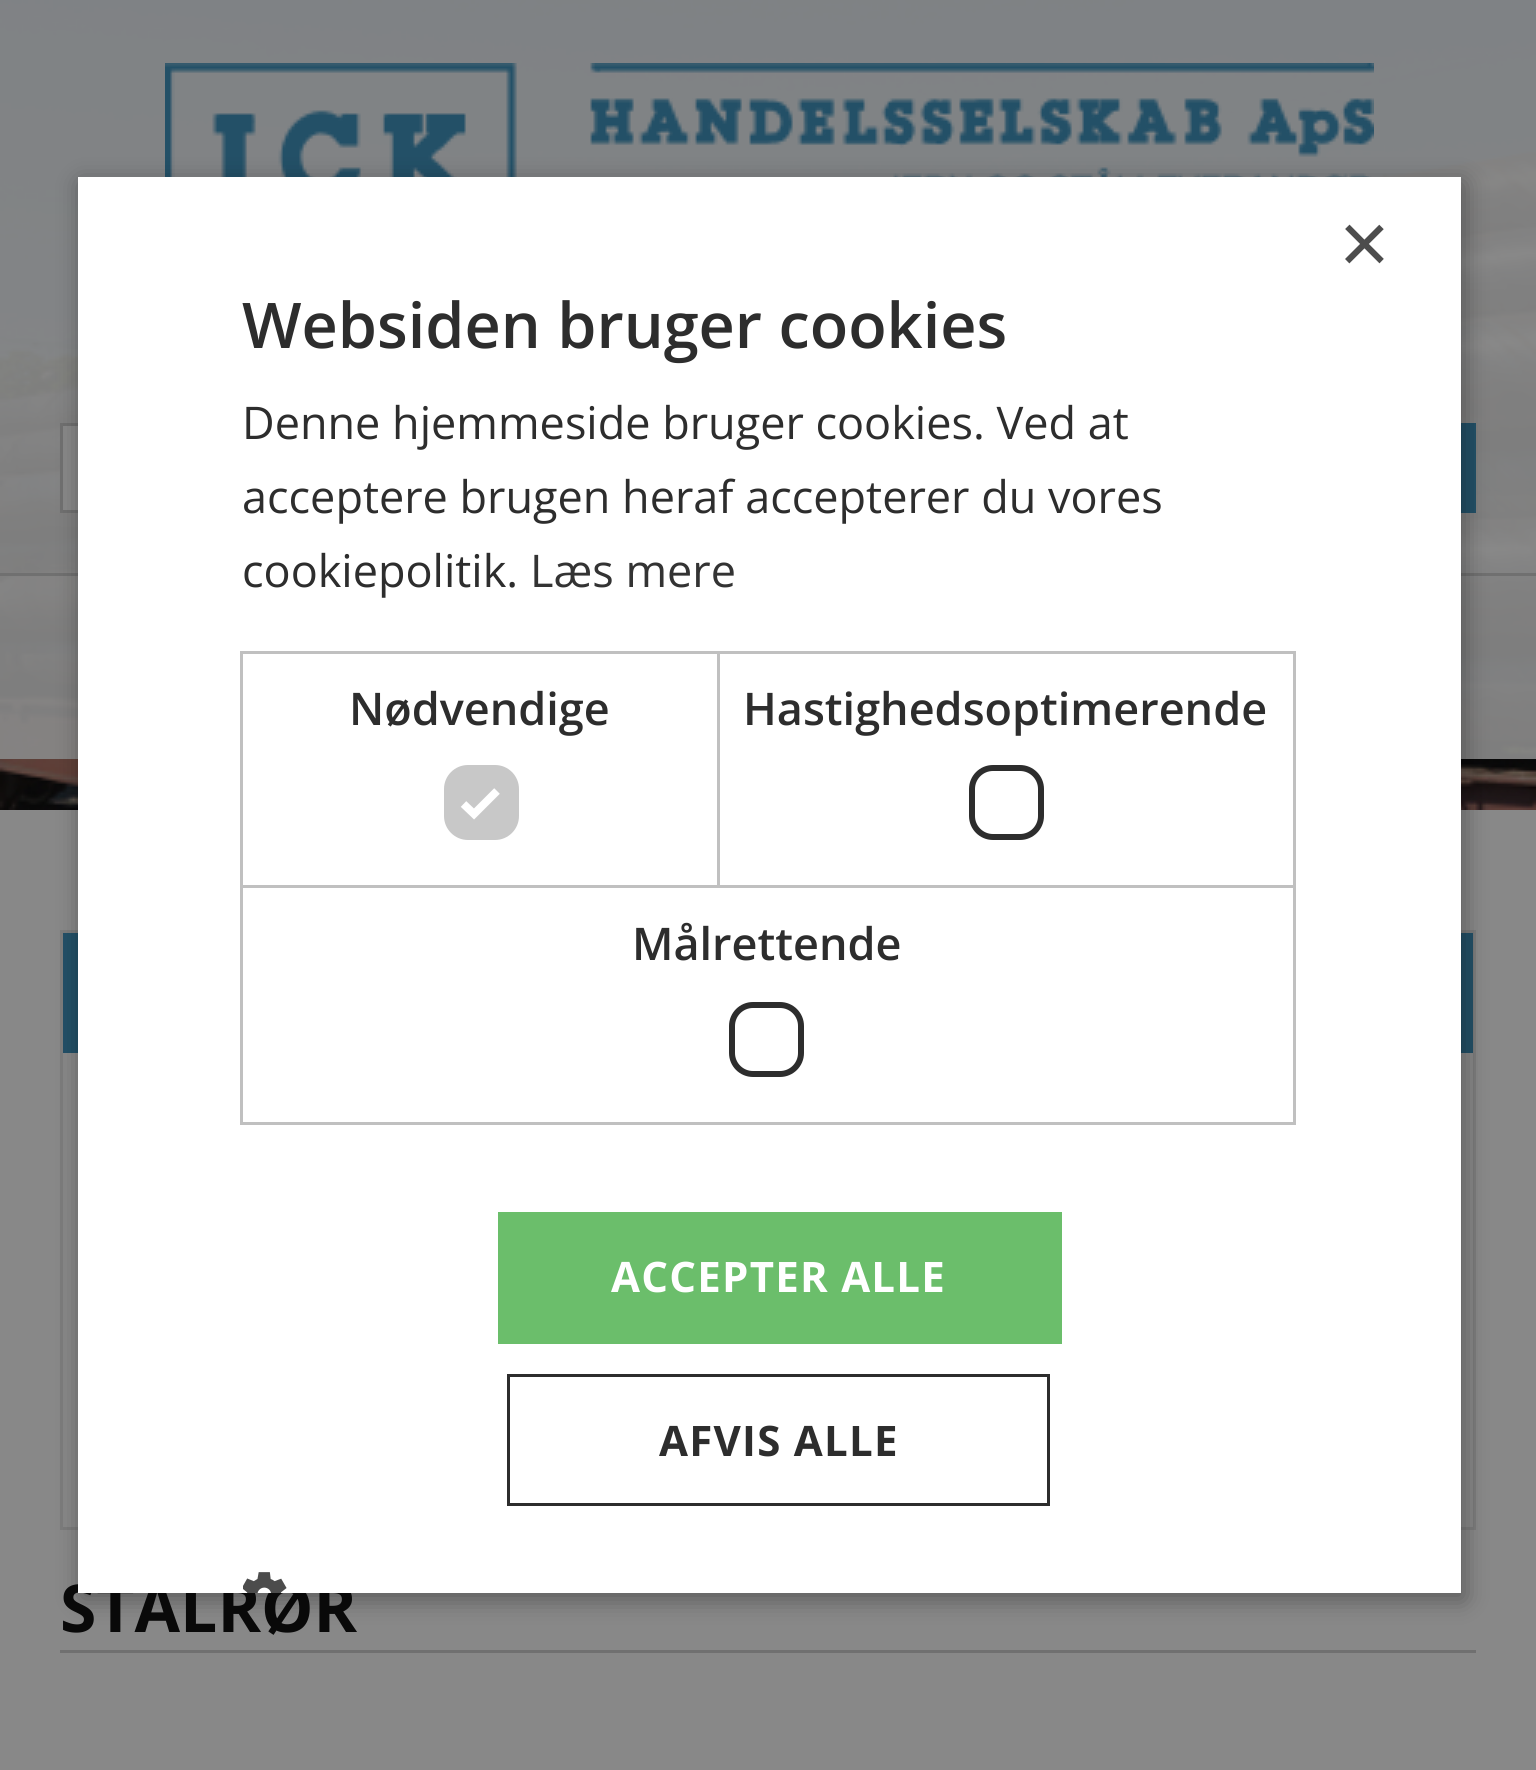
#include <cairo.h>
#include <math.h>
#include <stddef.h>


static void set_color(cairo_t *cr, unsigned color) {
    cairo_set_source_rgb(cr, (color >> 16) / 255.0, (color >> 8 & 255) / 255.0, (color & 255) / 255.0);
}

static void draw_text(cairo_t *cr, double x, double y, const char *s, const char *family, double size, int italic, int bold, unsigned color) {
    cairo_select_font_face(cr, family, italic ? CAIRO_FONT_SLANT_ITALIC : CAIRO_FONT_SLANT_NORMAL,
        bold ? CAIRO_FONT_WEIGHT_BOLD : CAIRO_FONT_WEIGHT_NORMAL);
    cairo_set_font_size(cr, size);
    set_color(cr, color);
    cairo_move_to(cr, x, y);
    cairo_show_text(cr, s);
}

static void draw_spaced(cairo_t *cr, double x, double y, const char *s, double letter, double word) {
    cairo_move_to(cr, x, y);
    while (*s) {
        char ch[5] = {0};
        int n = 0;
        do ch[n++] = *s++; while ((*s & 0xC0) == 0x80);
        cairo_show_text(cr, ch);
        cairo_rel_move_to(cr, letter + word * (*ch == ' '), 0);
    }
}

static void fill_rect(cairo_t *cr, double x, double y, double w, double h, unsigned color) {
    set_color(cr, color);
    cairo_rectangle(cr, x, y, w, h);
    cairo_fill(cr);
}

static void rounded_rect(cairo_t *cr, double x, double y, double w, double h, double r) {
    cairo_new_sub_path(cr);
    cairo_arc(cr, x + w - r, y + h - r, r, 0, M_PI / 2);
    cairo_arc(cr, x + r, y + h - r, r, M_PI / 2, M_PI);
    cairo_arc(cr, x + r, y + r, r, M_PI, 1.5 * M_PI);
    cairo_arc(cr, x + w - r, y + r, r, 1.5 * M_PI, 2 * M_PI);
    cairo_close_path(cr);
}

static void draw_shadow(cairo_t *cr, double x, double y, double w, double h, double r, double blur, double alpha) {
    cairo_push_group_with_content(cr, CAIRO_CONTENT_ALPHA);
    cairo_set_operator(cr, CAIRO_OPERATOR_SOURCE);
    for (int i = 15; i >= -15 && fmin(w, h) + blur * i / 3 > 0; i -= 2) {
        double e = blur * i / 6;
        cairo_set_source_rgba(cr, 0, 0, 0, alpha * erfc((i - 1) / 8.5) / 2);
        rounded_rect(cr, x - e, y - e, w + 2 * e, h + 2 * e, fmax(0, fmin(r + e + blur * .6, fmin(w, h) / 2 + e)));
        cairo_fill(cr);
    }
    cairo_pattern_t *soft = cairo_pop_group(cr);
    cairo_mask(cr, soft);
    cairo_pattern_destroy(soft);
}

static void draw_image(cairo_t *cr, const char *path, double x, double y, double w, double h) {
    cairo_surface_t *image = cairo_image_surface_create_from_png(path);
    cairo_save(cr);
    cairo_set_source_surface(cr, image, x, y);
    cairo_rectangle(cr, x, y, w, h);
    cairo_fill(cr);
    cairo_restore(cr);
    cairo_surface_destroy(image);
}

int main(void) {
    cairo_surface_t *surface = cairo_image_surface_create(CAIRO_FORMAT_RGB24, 1536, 1770);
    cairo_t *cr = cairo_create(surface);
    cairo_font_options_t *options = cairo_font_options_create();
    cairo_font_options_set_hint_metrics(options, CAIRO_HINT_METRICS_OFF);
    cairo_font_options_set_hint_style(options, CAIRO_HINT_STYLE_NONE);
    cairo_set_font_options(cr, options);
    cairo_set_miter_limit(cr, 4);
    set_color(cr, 0x888888);
    cairo_paint(cr);
    draw_image(cr, "assets/img1.png", 0, 0, 1536, 810);
    cairo_set_source_rgba(cr, 0.533, 0.533, 0.533, 0.92);
    cairo_rectangle(cr, 0, 0, 1536, 573);
    cairo_fill(cr);
    draw_image(cr, "assets/img2.png", 165, 63, 1209, 114);
    fill_rect(cr, 63, 426, 15, 84, 0x888888);
    cairo_rectangle(cr, 61.5, 424.5, 1158, 87);
    set_color(cr, 0x707070);
    cairo_set_line_width(cr, 3);
    cairo_stroke(cr);
    fill_rect(cr, 1461, 423, 15, 90, 0x235067);
    cairo_set_source_rgba(cr, 0.533, 0.533, 0.533, 0.92);
    cairo_rectangle(cr, 0, 576, 1536, 183);
    cairo_fill(cr);
    fill_rect(cr, 0, 573, 1536, 3, 0x707070);
    cairo_rectangle(cr, 61.5, 931.5, 1413, 597);
    set_color(cr, 0x7C7C7C);
    cairo_stroke(cr);
    fill_rect(cr, 63, 933, 1410, 120, 0x235067);
    set_color(cr, 0x000000);
    draw_shadow(cr, 81, 183, 1383, 1416, 0, 12, 0.35);
    draw_text(cr, 60, 1632, "STÅLRØR", "Open Sans", 66, 0, 1, 0x090909);
    fill_rect(cr, 78, 177, 1383, 1416, 0xFFFFFF);
    draw_text(cr, 1339, 273, "×", "Liberation Sans", 87, 0, 0, 0x4D4D4D);
    draw_text(cr, 242, 348, "Websiden bruger cookies", "Open Sans SemiBold", 63, 0, 0, 0x2D2D2D);
    draw_text(cr, 242, 439, "Denne hjemmeside bruger cookies. Ved at", "Open Sans", 45, 0, 0, 0x2D2D2D);
    draw_text(cr, 242, 513, "acceptere brugen heraf accepterer du vores", "Open Sans", 45, 0, 0, 0x2D2D2D);
    draw_text(cr, 242, 587, "cookiepolitik.", "Open Sans", 45, 0, 0, 0x2D2D2D);
    draw_text(cr, 530, 587, "Læs mere", "Open Sans", 45, 0, 0, 0x333333);
    cairo_rectangle(cr, 241.5, 652.5, 477, 234);
    set_color(cr, 0xC0C0C0);
    cairo_stroke(cr);
    draw_text(cr, 349, 725, "Nødvendige", "Open Sans SemiBold", 45, 0, 0, 0x2D2D2D);
    set_color(cr, 0xC8C8C8);
    rounded_rect(cr, 444, 765, 75, 75, 24);
    cairo_fill(cr);
    cairo_new_path(cr);
    cairo_move_to(cr, 463.5, 804);
    cairo_line_to(cr, 474, 814);
    cairo_line_to(cr, 497, 791);
    set_color(cr, 0xFFFFFF);
    cairo_set_line_width(cr, 7.9);
    cairo_stroke(cr);
    cairo_rectangle(cr, 718.5, 652.5, 576, 234);
    set_color(cr, 0xC0C0C0);
    cairo_set_line_width(cr, 3);
    cairo_stroke(cr);
    draw_text(cr, 743, 725, "Hastighedsoptimerende", "Open Sans SemiBold", 45, 0, 0, 0x2D2D2D);
    rounded_rect(cr, 972, 768, 69, 69, 21);
    cairo_set_line_width(cr, 6);
    cairo_stroke(cr);
    cairo_rectangle(cr, 241.5, 886.5, 1053, 237);
    set_color(cr, 0xC0C0C0);
    cairo_set_line_width(cr, 3);
    cairo_stroke(cr);
    draw_text(cr, 632, 960, "Målrettende", "Open Sans SemiBold", 45, 0, 0, 0x2D2D2D);
    rounded_rect(cr, 732, 1005, 69, 69, 21);
    cairo_set_line_width(cr, 6);
    cairo_stroke(cr);
    fill_rect(cr, 498, 1212, 564, 132, 0x6BBE6B);
    cairo_select_font_face(cr, "Open Sans", CAIRO_FONT_SLANT_NORMAL, CAIRO_FONT_WEIGHT_BOLD);
    cairo_set_font_size(cr, 42);
    set_color(cr, 0xFFFFFF);
    draw_spaced(cr, 611, 1292, "ACCEPTER ALLE", 1.25, 0);
    cairo_rectangle(cr, 508.5, 1375.5, 540, 129);
    set_color(cr, 0x2D2D2D);
    cairo_set_line_width(cr, 3);
    cairo_stroke(cr);
    draw_spaced(cr, 659, 1456, "AFVIS ALLE", 1.25, 0);
    draw_image(cr, "assets/img3.png", 243, 1572, 44, 21);
    fill_rect(cr, 60, 1650, 1416, 3, 0x707070);
    cairo_surface_write_to_png(surface, "output.png");
    cairo_font_options_destroy(options);
    cairo_destroy(cr);
    cairo_surface_destroy(surface);
    return 0;
}
